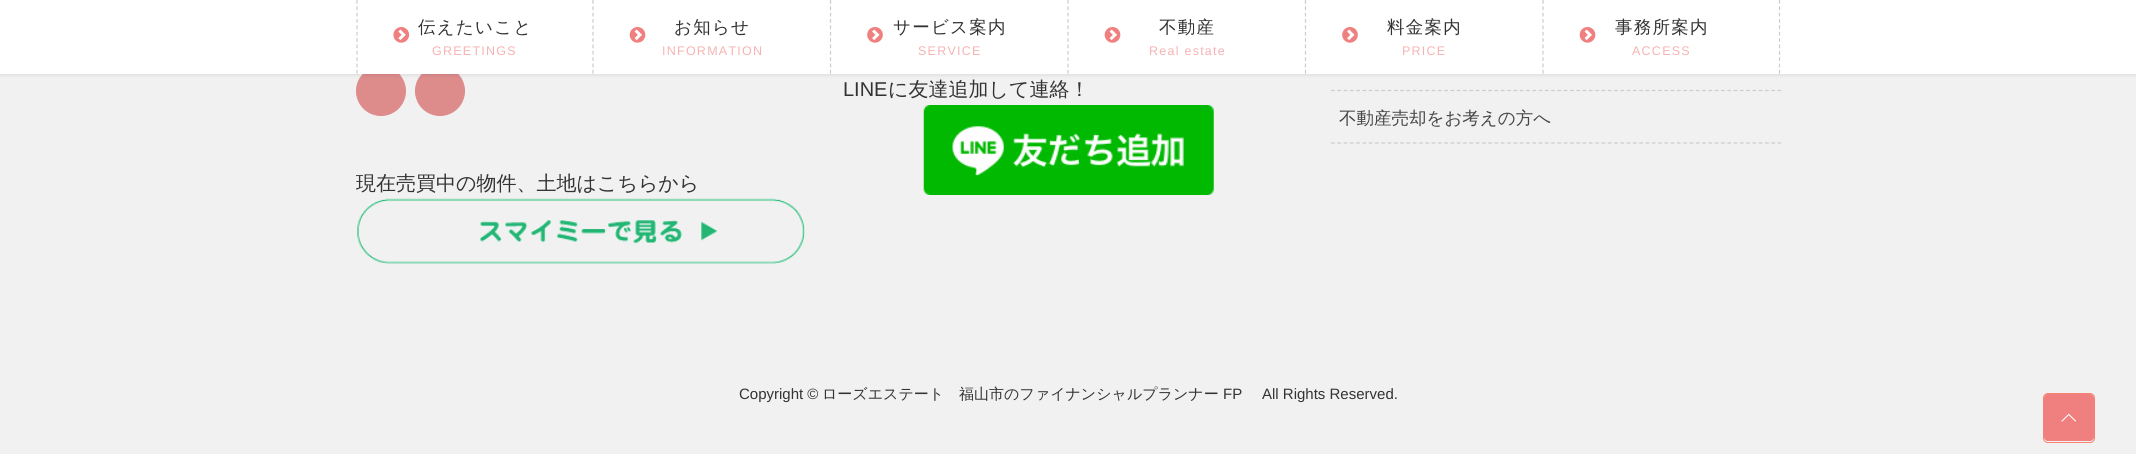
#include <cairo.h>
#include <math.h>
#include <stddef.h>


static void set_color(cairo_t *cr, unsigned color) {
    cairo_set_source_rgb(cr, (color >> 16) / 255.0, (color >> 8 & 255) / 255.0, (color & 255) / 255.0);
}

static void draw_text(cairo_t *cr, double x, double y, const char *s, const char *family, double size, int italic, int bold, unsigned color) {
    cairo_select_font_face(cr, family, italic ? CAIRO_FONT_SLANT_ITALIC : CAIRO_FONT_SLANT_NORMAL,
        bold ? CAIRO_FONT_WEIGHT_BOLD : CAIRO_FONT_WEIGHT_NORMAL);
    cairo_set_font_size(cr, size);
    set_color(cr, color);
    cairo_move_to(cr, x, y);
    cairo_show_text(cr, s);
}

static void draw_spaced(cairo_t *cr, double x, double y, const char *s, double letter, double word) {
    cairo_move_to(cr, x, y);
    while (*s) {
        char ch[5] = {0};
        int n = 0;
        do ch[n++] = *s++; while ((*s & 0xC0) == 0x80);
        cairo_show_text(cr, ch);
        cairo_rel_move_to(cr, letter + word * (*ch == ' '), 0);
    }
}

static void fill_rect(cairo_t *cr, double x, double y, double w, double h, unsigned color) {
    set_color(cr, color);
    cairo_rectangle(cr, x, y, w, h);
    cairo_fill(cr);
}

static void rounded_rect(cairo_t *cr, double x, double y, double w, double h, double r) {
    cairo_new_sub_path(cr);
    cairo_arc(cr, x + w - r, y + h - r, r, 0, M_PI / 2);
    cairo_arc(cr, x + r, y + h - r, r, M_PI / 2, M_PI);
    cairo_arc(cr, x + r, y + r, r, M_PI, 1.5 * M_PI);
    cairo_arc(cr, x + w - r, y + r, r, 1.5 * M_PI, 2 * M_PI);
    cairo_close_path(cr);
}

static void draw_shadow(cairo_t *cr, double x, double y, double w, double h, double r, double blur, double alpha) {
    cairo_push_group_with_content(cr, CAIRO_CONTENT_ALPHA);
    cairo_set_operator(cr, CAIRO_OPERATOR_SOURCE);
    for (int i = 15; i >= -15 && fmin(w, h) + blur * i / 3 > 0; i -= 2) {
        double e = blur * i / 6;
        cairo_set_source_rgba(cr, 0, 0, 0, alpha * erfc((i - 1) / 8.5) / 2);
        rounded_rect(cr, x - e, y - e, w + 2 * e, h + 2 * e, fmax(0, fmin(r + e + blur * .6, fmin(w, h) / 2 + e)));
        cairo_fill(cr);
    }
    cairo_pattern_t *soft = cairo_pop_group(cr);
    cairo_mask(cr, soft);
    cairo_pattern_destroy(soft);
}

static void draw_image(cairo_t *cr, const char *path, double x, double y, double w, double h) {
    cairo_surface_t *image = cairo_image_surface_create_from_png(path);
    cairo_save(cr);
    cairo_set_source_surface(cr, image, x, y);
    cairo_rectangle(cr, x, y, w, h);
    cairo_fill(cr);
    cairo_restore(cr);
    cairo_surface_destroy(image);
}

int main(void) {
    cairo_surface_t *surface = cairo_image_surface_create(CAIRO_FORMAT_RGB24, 2136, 454);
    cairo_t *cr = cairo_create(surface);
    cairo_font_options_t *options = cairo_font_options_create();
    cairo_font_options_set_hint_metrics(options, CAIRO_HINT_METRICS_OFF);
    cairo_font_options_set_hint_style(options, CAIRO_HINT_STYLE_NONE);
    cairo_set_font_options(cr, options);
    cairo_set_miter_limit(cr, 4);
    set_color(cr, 0xF1F1F1);
    cairo_paint(cr);
    set_color(cr, 0xDD8B8B);
    cairo_arc(cr, 381, 91, 24.5, 0, 2 * M_PI);
    cairo_fill_preserve(cr);
    cairo_set_line_width(cr, 1);
    cairo_stroke(cr);
    cairo_arc(cr, 440, 91, 24.5, 0, 2 * M_PI);
    cairo_fill_preserve(cr);
    cairo_stroke(cr);
    set_color(cr, 0x000000);
    draw_shadow(cr, 0, 1, 2136, 74, 0, 2, 0.1);
    fill_rect(cr, 0, 0, 2136, 74, 0xFFFFFF);
    cairo_new_path(cr);
    cairo_move_to(cr, 357, 0);
    cairo_line_to(cr, 357, 74);
    set_color(cr, 0xCCCCCC);
    cairo_set_line_width(cr, 1.2);
    cairo_set_dash(cr, (double[]){3.75, 2.61}, 2, 0);
    cairo_stroke(cr);
    draw_image(cr, "assets/img1.png", 393, 27, 17, 16);
    cairo_select_font_face(cr, "WenQuanYi Zen Hei Medium", CAIRO_FONT_SLANT_NORMAL, CAIRO_FONT_WEIGHT_NORMAL);
    cairo_set_font_size(cr, 17.5);
    set_color(cr, 0x333333);
    draw_spaced(cr, 418, 33, "伝えたいこと", 1.25, 0);
    cairo_select_font_face(cr, "Liberation Sans", CAIRO_FONT_SLANT_NORMAL, CAIRO_FONT_WEIGHT_NORMAL);
    cairo_set_font_size(cr, 12.5);
    set_color(cr, 0xF6B3B3);
    draw_spaced(cr, 432, 55, "GREETINGS", 1.25, 0);
    cairo_new_path(cr);
    cairo_move_to(cr, 593, 0);
    cairo_line_to(cr, 593, 74);
    set_color(cr, 0xCCCCCC);
    cairo_stroke(cr);
    draw_image(cr, "assets/img2.png", 629, 27, 17, 16);
    cairo_select_font_face(cr, "WenQuanYi Zen Hei Medium", CAIRO_FONT_SLANT_NORMAL, CAIRO_FONT_WEIGHT_NORMAL);
    cairo_set_font_size(cr, 17.5);
    set_color(cr, 0x333333);
    draw_spaced(cr, 674, 33, "お知らせ", 1.25, 0);
    cairo_select_font_face(cr, "Liberation Sans", CAIRO_FONT_SLANT_NORMAL, CAIRO_FONT_WEIGHT_NORMAL);
    cairo_set_font_size(cr, 12.5);
    set_color(cr, 0xF6B3B3);
    draw_spaced(cr, 662, 55, "INFORMATION", 1.25, 0);
    cairo_new_path(cr);
    cairo_move_to(cr, 830.5, 0);
    cairo_line_to(cr, 830.5, 74);
    set_color(cr, 0xCCCCCC);
    cairo_stroke(cr);
    draw_image(cr, "assets/img3.png", 867, 27, 16, 16);
    cairo_select_font_face(cr, "WenQuanYi Zen Hei Medium", CAIRO_FONT_SLANT_NORMAL, CAIRO_FONT_WEIGHT_NORMAL);
    cairo_set_font_size(cr, 17.5);
    set_color(cr, 0x333333);
    draw_spaced(cr, 893, 33, "サービス案内", 1.25, 0);
    cairo_select_font_face(cr, "Liberation Sans", CAIRO_FONT_SLANT_NORMAL, CAIRO_FONT_WEIGHT_NORMAL);
    cairo_set_font_size(cr, 12.5);
    set_color(cr, 0xF6B3B3);
    draw_spaced(cr, 918, 55, "SERVICE", 1.25, 0);
    cairo_new_path(cr);
    cairo_move_to(cr, 1068, 0);
    cairo_line_to(cr, 1068, 74);
    set_color(cr, 0xCCCCCC);
    cairo_stroke(cr);
    draw_image(cr, "assets/img2.png", 1104, 27, 17, 16);
    cairo_select_font_face(cr, "WenQuanYi Zen Hei Medium", CAIRO_FONT_SLANT_NORMAL, CAIRO_FONT_WEIGHT_NORMAL);
    cairo_set_font_size(cr, 17.5);
    set_color(cr, 0x333333);
    draw_spaced(cr, 1159, 33, "不動産", 1.25, 0);
    cairo_select_font_face(cr, "Liberation Sans", CAIRO_FONT_SLANT_NORMAL, CAIRO_FONT_WEIGHT_NORMAL);
    cairo_set_font_size(cr, 12.5);
    set_color(cr, 0xF6B3B3);
    draw_spaced(cr, 1149, 55, "Real estate", 1.25, 0);
    cairo_new_path(cr);
    cairo_move_to(cr, 1305.5, 0);
    cairo_line_to(cr, 1305.5, 74);
    set_color(cr, 0xCCCCCC);
    cairo_stroke(cr);
    draw_image(cr, "assets/img3.png", 1342, 27, 16, 16);
    cairo_select_font_face(cr, "WenQuanYi Zen Hei Medium", CAIRO_FONT_SLANT_NORMAL, CAIRO_FONT_WEIGHT_NORMAL);
    cairo_set_font_size(cr, 17.5);
    set_color(cr, 0x333333);
    draw_spaced(cr, 1387, 33, "料金案内", 1.25, 0);
    cairo_select_font_face(cr, "Liberation Sans", CAIRO_FONT_SLANT_NORMAL, CAIRO_FONT_WEIGHT_NORMAL);
    cairo_set_font_size(cr, 12.5);
    set_color(cr, 0xF6B3B3);
    draw_spaced(cr, 1402, 55, "PRICE", 1.25, 0);
    cairo_new_path(cr);
    cairo_move_to(cr, 1779.5, 0);
    cairo_line_to(cr, 1779.5, 74);
    set_color(cr, 0xCCCCCC);
    cairo_stroke(cr);
    cairo_new_path(cr);
    cairo_move_to(cr, 1543, 0);
    cairo_line_to(cr, 1543, 74);
    cairo_stroke(cr);
    draw_image(cr, "assets/img2.png", 1579, 27, 17, 16);
    cairo_select_font_face(cr, "WenQuanYi Zen Hei Medium", CAIRO_FONT_SLANT_NORMAL, CAIRO_FONT_WEIGHT_NORMAL);
    cairo_set_font_size(cr, 17.5);
    set_color(cr, 0x333333);
    draw_spaced(cr, 1615, 33, "事務所案内", 1.25, 0);
    cairo_select_font_face(cr, "Liberation Sans", CAIRO_FONT_SLANT_NORMAL, CAIRO_FONT_WEIGHT_NORMAL);
    cairo_set_font_size(cr, 12.5);
    set_color(cr, 0xF6B3B3);
    draw_spaced(cr, 1632, 55, "ACCESS", 1.25, 0);
    draw_text(cr, 843, 96, "LINE", "Liberation Sans", 20, 0, 0, 0x333333);
    draw_text(cr, 888, 96, "に友達追加して連絡！", "WenQuanYi Zen Hei Medium", 20, 0, 0, 0x333333);
    draw_image(cr, "assets/img4.png", 923, 105, 291, 90);
    cairo_new_path(cr);
    cairo_move_to(cr, 1331, 90.5);
    cairo_line_to(cr, 1781, 90.5);
    set_color(cr, 0xCCCCCC);
    cairo_set_dash(cr, (double[]){3.75, 2.54}, 2, 0);
    cairo_stroke(cr);
    cairo_new_path(cr);
    cairo_move_to(cr, 1331, 143);
    cairo_line_to(cr, 1781, 143);
    cairo_stroke(cr);
    draw_text(cr, 1339, 124, "不動産売却をお考えの方へ", "WenQuanYi Zen Hei Medium", 17.5, 0, 0, 0x464646);
    draw_text(cr, 356, 190, "現在売買中の物件、土地はこちらから", "WenQuanYi Zen Hei Medium", 20, 0, 0, 0x333333);
    draw_image(cr, "assets/img5.png", 357, 198, 448, 66);
    draw_text(cr, 739, 399, "Copyright ©", "Liberation Sans", 15, 0, 0, 0x333333);
    draw_text(cr, 822, 399, "ローズエステート　福山市のファイナンシャルプランナー", "WenQuanYi Zen Hei Medium", 15, 0, 0, 0x333333);
    draw_text(cr, 1223, 399, "FP", "Liberation Sans", 15, 0, 0, 0x333333);
    draw_text(cr, 1262, 399, "All Rights Reserved.", "Liberation Sans", 15, 0, 0, 0x333333);
    rounded_rect(cr, 2043.5, 393.5, 51, 49, 4.5);
    set_color(cr, 0xFA8072);
    cairo_set_line_width(cr, 1);
    cairo_set_dash(cr, NULL, 0, 0);
    cairo_stroke(cr);
    set_color(cr, 0xF08080);
    rounded_rect(cr, 2044, 394, 50, 47, 4);
    cairo_fill(cr);
    draw_image(cr, "assets/img6.png", 2061, 413, 15, 9);
    cairo_surface_write_to_png(surface, "output.png");
    cairo_font_options_destroy(options);
    cairo_destroy(cr);
    cairo_surface_destroy(surface);
    return 0;
}
